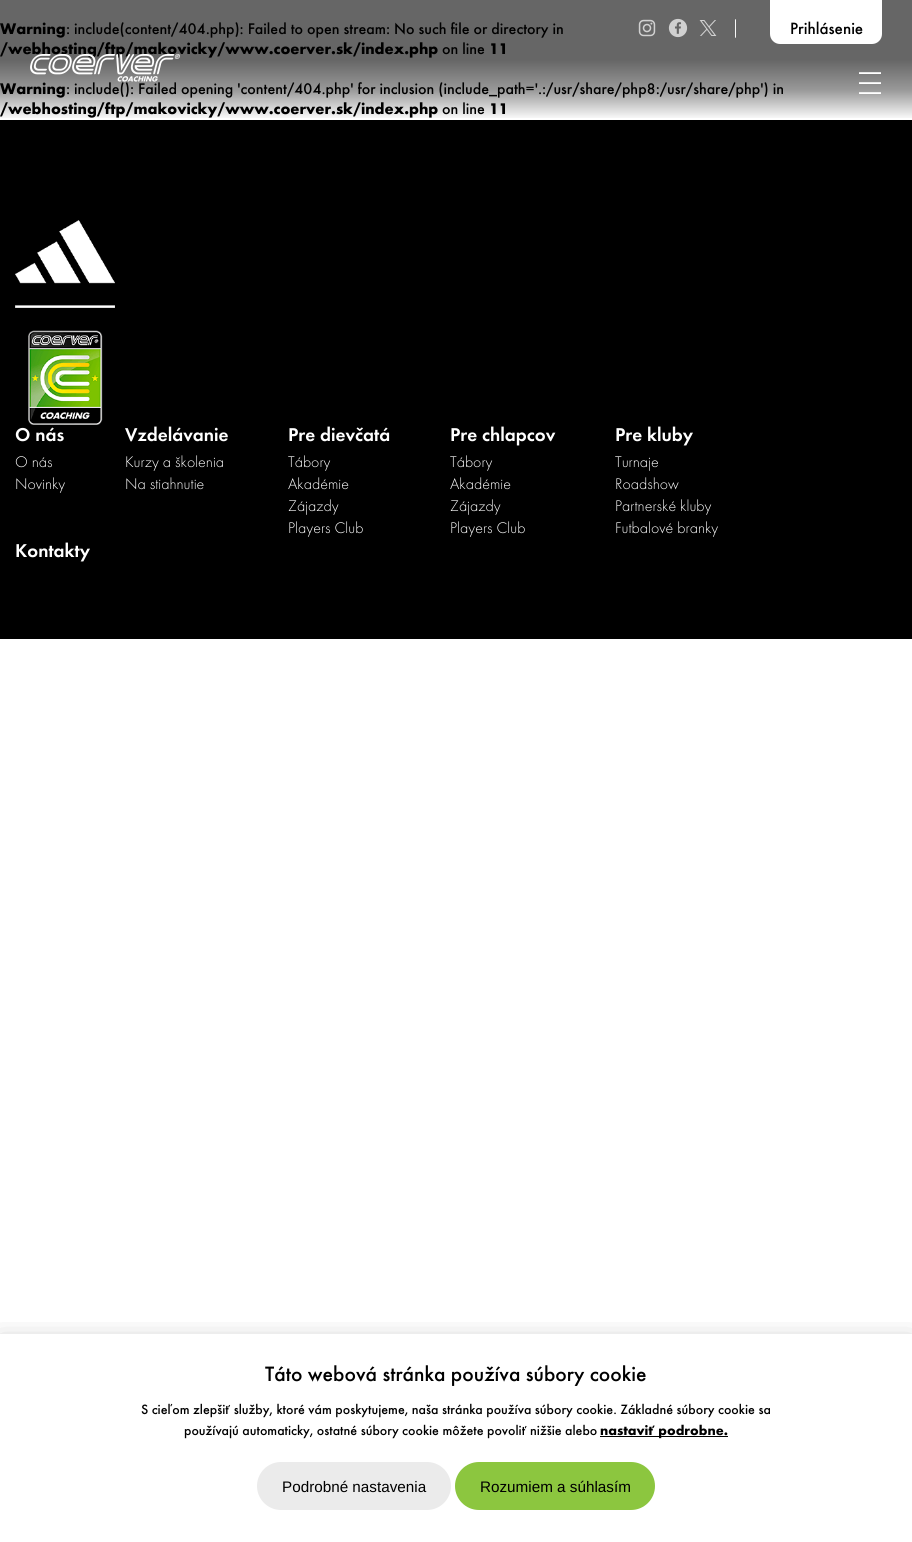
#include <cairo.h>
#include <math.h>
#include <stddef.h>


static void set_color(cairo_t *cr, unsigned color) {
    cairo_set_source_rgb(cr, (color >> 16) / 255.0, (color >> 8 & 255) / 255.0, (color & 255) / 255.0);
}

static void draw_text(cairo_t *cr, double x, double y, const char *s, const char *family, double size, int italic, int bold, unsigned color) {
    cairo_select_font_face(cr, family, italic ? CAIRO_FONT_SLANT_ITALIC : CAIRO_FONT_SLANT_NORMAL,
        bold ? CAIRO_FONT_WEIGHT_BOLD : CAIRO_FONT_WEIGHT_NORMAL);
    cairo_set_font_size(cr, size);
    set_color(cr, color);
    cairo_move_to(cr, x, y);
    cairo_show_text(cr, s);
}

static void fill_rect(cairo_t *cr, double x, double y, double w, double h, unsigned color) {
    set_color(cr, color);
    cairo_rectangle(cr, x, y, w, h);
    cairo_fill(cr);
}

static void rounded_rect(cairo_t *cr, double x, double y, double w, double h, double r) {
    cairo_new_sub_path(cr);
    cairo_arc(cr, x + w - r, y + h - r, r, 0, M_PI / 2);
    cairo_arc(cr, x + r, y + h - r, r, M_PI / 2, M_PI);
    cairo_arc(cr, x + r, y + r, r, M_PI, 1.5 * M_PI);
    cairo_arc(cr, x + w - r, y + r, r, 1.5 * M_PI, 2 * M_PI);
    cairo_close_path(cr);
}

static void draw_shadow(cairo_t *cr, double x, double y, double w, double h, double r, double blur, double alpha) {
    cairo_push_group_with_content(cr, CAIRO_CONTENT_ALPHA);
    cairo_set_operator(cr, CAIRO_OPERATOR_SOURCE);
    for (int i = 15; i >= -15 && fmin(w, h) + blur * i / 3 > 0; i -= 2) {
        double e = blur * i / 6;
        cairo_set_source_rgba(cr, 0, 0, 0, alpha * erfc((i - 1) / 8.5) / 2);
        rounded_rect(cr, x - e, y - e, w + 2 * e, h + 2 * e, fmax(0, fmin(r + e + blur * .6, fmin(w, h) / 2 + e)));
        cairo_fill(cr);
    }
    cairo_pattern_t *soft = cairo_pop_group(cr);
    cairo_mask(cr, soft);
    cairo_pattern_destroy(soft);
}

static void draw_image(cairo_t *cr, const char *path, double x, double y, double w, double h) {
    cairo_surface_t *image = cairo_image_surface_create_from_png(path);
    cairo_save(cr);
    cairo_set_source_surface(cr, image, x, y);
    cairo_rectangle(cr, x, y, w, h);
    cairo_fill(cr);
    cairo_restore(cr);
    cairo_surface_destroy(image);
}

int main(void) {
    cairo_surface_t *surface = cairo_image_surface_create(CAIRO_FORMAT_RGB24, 912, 1542);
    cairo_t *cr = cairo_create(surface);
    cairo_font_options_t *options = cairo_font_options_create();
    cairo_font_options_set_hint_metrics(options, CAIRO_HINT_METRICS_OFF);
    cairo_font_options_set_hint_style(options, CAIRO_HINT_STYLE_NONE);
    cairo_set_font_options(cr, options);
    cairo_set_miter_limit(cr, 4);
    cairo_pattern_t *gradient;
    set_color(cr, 0xFFFFFF);
    cairo_paint(cr);
    draw_text(cr, 0, 34, "Warning", "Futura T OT", 16, 0, 1, 0x000000);
    draw_text(cr, 66, 34, ": include(content/404.php): Failed to open stream: No such file or directory in", "Futura T OT Medium", 16, 0, 0, 0x000000);
    draw_text(cr, 0, 54, "/webhosting/ftp/makovicky/www.coerver.sk/index.php", "Futura T OT", 16, 0, 1, 0x000000);
    draw_text(cr, 442, 54, "on line", "Futura T OT Medium", 16, 0, 0, 0x000000);
    draw_text(cr, 489, 54, "11", "Futura T OT", 16, 0, 1, 0x000000);
    draw_text(cr, 0, 94, "Warning", "Futura T OT", 16, 0, 1, 0x000000);
    draw_text(cr, 66, 94, ": include(): Failed opening 'content/404.php' for inclusion (include_path='.:/usr/share/php8:/usr/share/php') in", "Futura T OT Medium", 16, 0, 0, 0x000000);
    draw_text(cr, 0, 114, "/webhosting/ftp/makovicky/www.coerver.sk/index.php", "Futura T OT", 16, 0, 1, 0x000000);
    draw_text(cr, 442, 114, "on line", "Futura T OT Medium", 16, 0, 0, 0x000000);
    draw_text(cr, 489, 114, "11", "Futura T OT", 16, 0, 1, 0x000000);
    gradient = cairo_pattern_create_linear(456, 0, 456, 120);
    cairo_pattern_add_color_stop_rgba(gradient, 0.5, 0, 0, 0, 0.6);
    cairo_pattern_add_color_stop_rgba(gradient, 0.75, 0, 0, 0, 0.4);
    cairo_pattern_add_color_stop_rgba(gradient, 1, 0, 0, 0, 0);
    cairo_set_source(cr, gradient);
    cairo_pattern_destroy(gradient);
    cairo_rectangle(cr, 0, 0, 912, 118);
    cairo_fill(cr);
    draw_image(cr, "assets/img1.png", 638, 19, 18, 18);
    draw_image(cr, "assets/img2.png", 668, 18, 20, 20);
    draw_image(cr, "assets/img3.png", 699, 20, 18, 16);
    draw_text(cr, 730, 34, "|", "Futura T OT Light", 22, 0, 0, 0xFFFFFF);
    cairo_new_path(cr);
    cairo_move_to(cr, 770, 0);
    cairo_line_to(cr, 882, 0);
    cairo_line_to(cr, 882, 34);
    cairo_curve_to(cr, 882, 39.5, 877.5, 44, 872, 44);
    cairo_line_to(cr, 780, 44);
    cairo_curve_to(cr, 774.5, 44, 770, 39.5, 770, 34);
    cairo_close_path(cr);
    cairo_fill(cr);
    draw_text(cr, 790, 34, "Prihlásenie", "Futura T OT Medium", 17, 0, 0, 0x000000);
    draw_image(cr, "assets/img4.png", 30, 54, 150, 28);
    draw_image(cr, "assets/img5.png", 859, 72, 22, 22);
    fill_rect(cr, 0, 120, 912, 519, 0x000000);
    draw_image(cr, "assets/img6.png", 15, 220, 100, 205);
    draw_text(cr, 15, 441, "O nás", "Futura T OT SemiBold", 19.25, 0, 0, 0xFFFFFF);
    draw_text(cr, 15, 467, "O nás", "Futura T OT Light", 16, 0, 0, 0xFFFFFF);
    draw_text(cr, 15, 489, "Novinky", "Futura T OT Light", 16, 0, 0, 0xFFFFFF);
    draw_text(cr, 125, 441, "Vzdelávanie", "Futura T OT SemiBold", 19.25, 0, 0, 0xFFFFFF);
    draw_text(cr, 125, 467, "Kurzy a školenia", "Futura T OT Light", 16, 0, 0, 0xFFFFFF);
    draw_text(cr, 125, 489, "Na stiahnutie", "Futura T OT Light", 16, 0, 0, 0xFFFFFF);
    draw_text(cr, 288, 441, "Pre dievčatá", "Futura T OT SemiBold", 19.25, 0, 0, 0xFFFFFF);
    draw_text(cr, 288, 467, "Tábory", "Futura T OT Light", 16, 0, 0, 0xFFFFFF);
    draw_text(cr, 288, 489, "Akadémie", "Futura T OT Light", 16, 0, 0, 0xFFFFFF);
    draw_text(cr, 288, 511, "Zájazdy", "Futura T OT Light", 16, 0, 0, 0xFFFFFF);
    draw_text(cr, 288, 533, "Players Club", "Futura T OT Light", 16, 0, 0, 0xFFFFFF);
    draw_text(cr, 450, 441, "Pre chlapcov", "Futura T OT SemiBold", 19.25, 0, 0, 0xFFFFFF);
    draw_text(cr, 450, 467, "Tábory", "Futura T OT Light", 16, 0, 0, 0xFFFFFF);
    draw_text(cr, 450, 489, "Akadémie", "Futura T OT Light", 16, 0, 0, 0xFFFFFF);
    draw_text(cr, 450, 511, "Zájazdy", "Futura T OT Light", 16, 0, 0, 0xFFFFFF);
    draw_text(cr, 450, 533, "Players Club", "Futura T OT Light", 16, 0, 0, 0xFFFFFF);
    draw_text(cr, 615, 441, "Pre kluby", "Futura T OT SemiBold", 19.25, 0, 0, 0xFFFFFF);
    draw_text(cr, 615, 467, "Turnaje", "Futura T OT Light", 16, 0, 0, 0xFFFFFF);
    draw_text(cr, 615, 489, "Roadshow", "Futura T OT Light", 16, 0, 0, 0xFFFFFF);
    draw_text(cr, 615, 511, "Partnerské kluby", "Futura T OT Light", 16, 0, 0, 0xFFFFFF);
    draw_text(cr, 615, 533, "Futbalové branky", "Futura T OT Light", 16, 0, 0, 0xFFFFFF);
    draw_text(cr, 15, 557, "Kontakty", "Futura T OT SemiBold", 19.25, 0, 0, 0xFFFFFF);
    cairo_save(cr);
    cairo_rectangle(cr, 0, 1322, 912, 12);
    cairo_clip(cr);
    set_color(cr, 0x020203);
    draw_shadow(cr, 0, 1344, 912, 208, 0, 15, 0.28);
    cairo_restore(cr);
    draw_text(cr, 265, 1381, "Táto webová stránka používa súbory cookie", "Futura T OT Medium", 21.6, 0, 0, 0x000000);
    draw_text(cr, 141, 1414, "S cieľom zlepšiť služby, ktoré vám poskytujeme, naša stránka používa súbory cookie. Základné súbory cookie sa", "Futura T OT Medium", 14, 0, 0, 0x000000);
    draw_text(cr, 184, 1435, "používajú automaticky, ostatné súbory cookie môžete povoliť nižšie alebo", "Futura T OT Medium", 14, 0, 0, 0x000000);
    fill_rect(cr, 600, 1436, 128, 1, 0x000000);
    draw_text(cr, 600, 1435, "nastaviť podrobne.", "Futura T OT", 14, 0, 1, 0x000000);
    set_color(cr, 0xEBEBEB);
    rounded_rect(cr, 257, 1462, 194, 48, 24);
    cairo_fill(cr);
    draw_text(cr, 282, 1492, "Podrobné nastavenia", "Liberation Sans", 15.25, 0, 0, 0x000000);
    set_color(cr, 0x8CC63F);
    rounded_rect(cr, 455, 1462, 200, 48, 24);
    cairo_fill(cr);
    draw_text(cr, 480, 1492, "Rozumiem a súhlasím", "Liberation Sans", 15.25, 0, 0, 0x000000);
    cairo_surface_write_to_png(surface, "output.png");
    cairo_font_options_destroy(options);
    cairo_destroy(cr);
    cairo_surface_destroy(surface);
    return 0;
}
